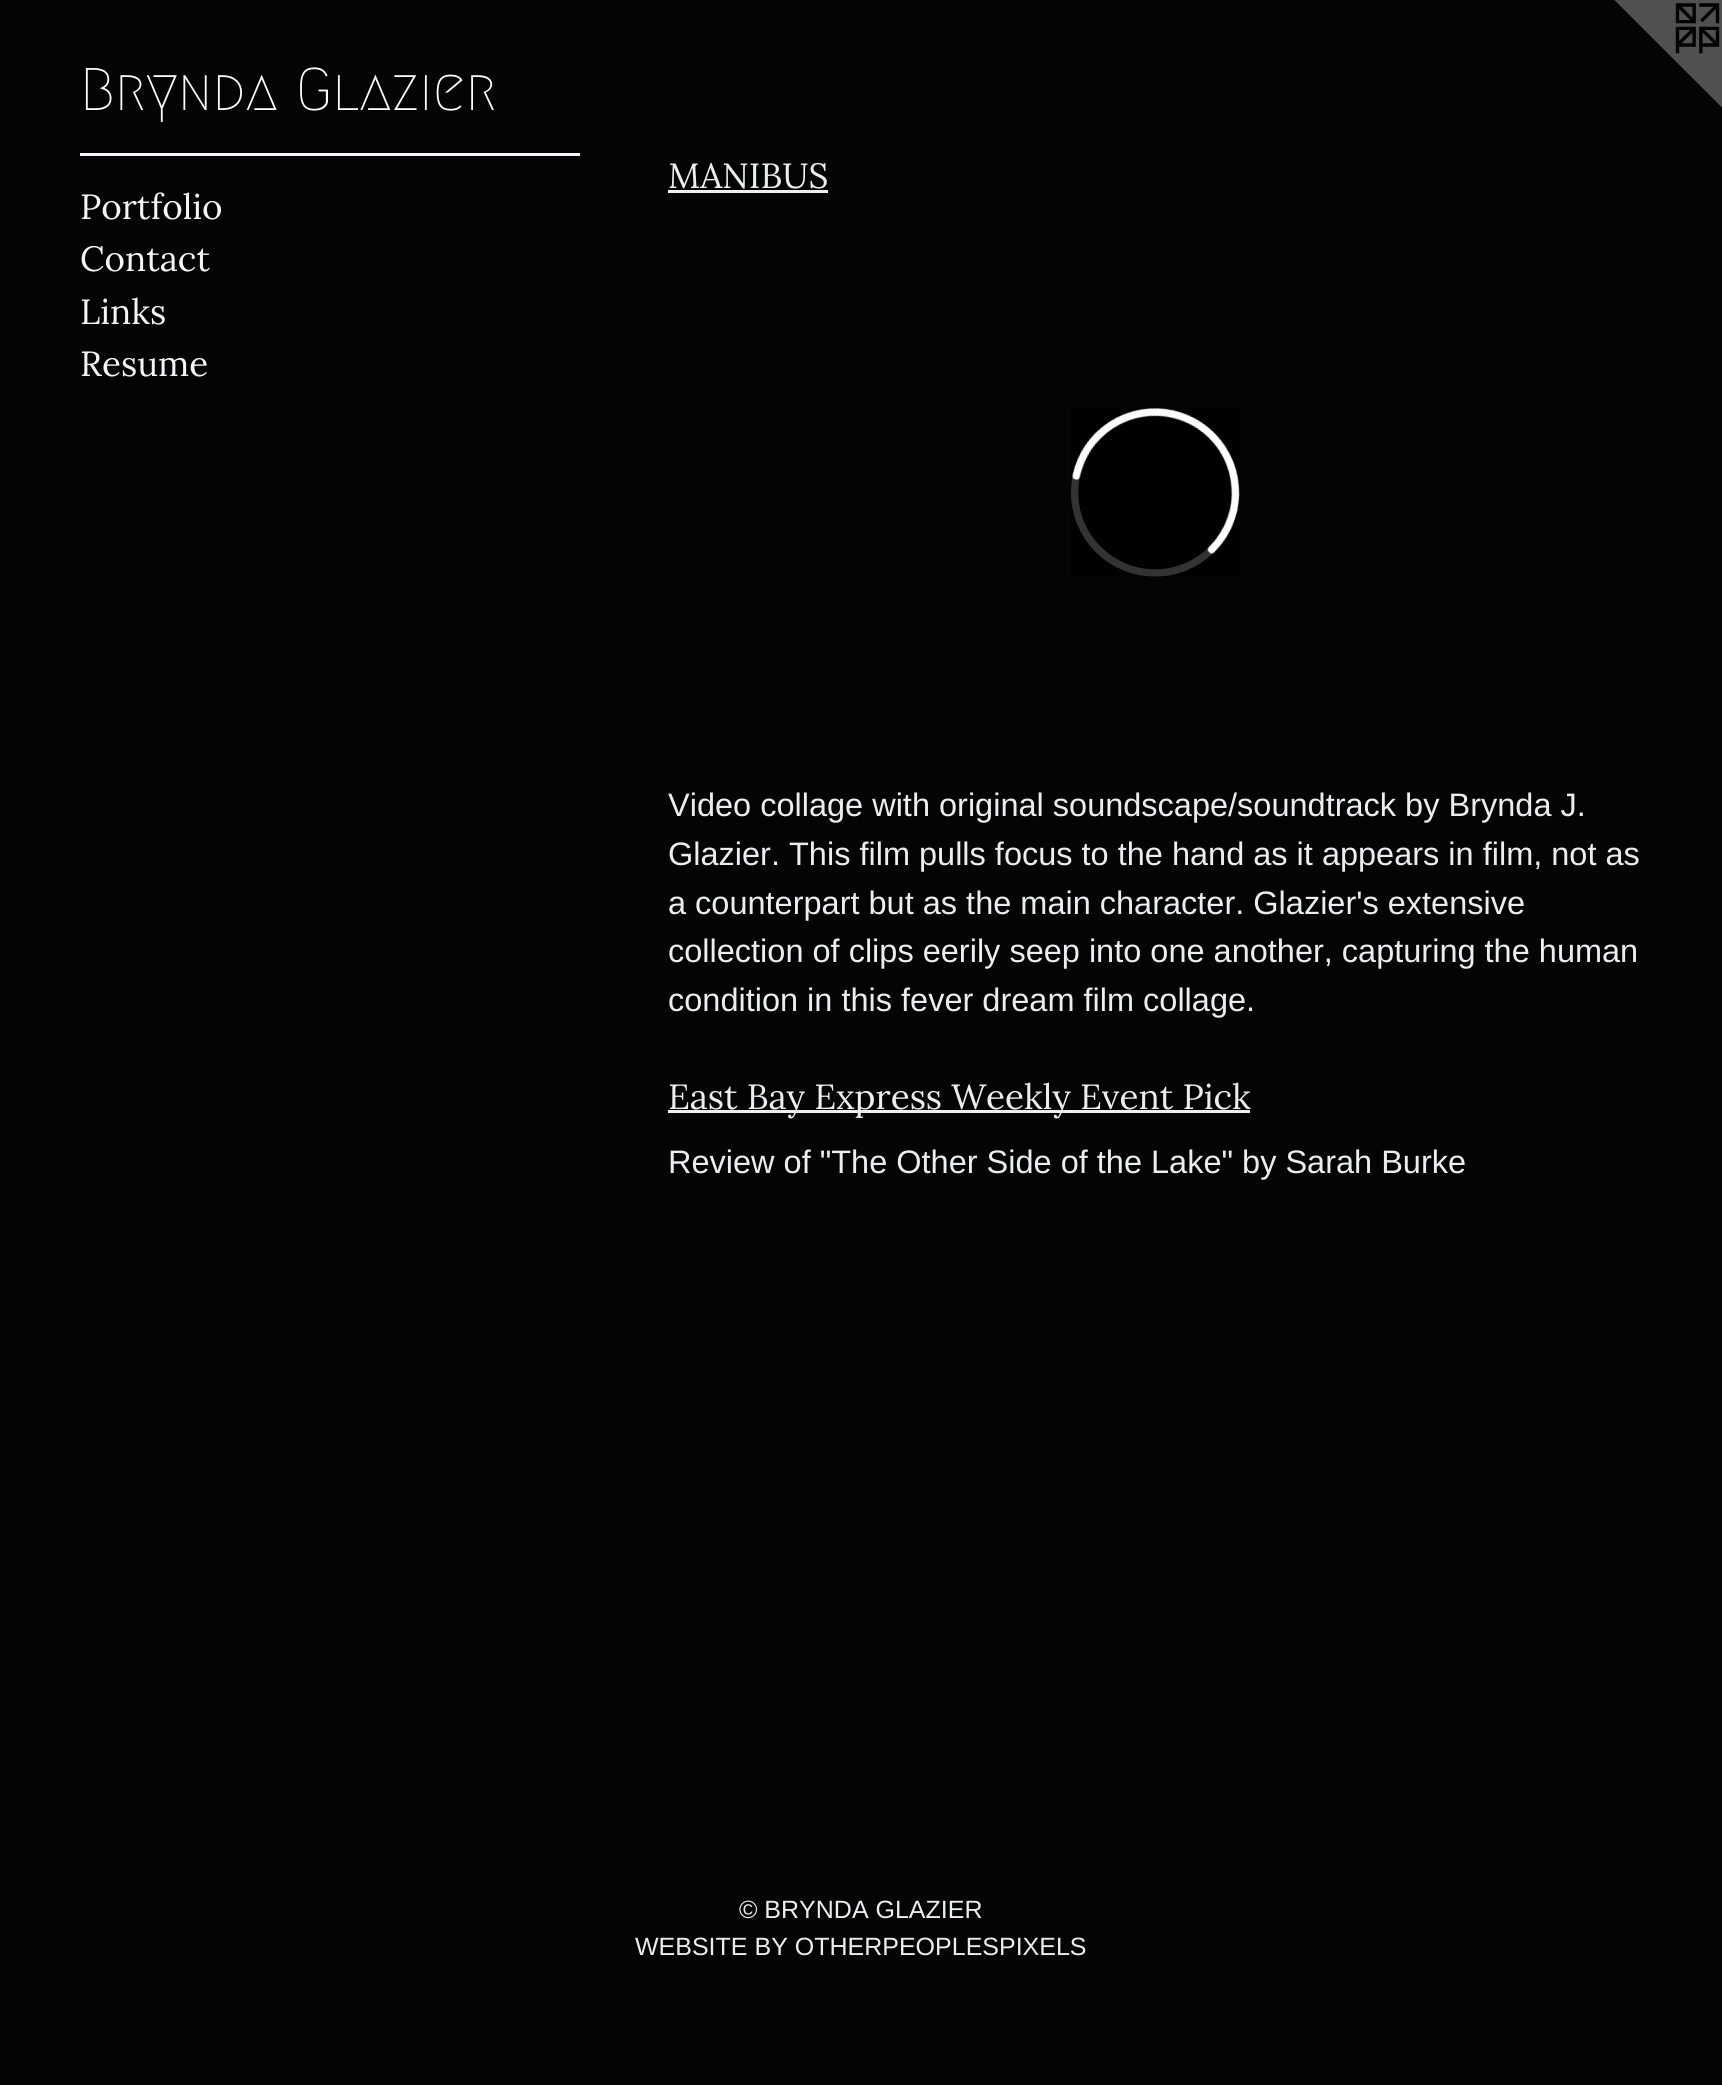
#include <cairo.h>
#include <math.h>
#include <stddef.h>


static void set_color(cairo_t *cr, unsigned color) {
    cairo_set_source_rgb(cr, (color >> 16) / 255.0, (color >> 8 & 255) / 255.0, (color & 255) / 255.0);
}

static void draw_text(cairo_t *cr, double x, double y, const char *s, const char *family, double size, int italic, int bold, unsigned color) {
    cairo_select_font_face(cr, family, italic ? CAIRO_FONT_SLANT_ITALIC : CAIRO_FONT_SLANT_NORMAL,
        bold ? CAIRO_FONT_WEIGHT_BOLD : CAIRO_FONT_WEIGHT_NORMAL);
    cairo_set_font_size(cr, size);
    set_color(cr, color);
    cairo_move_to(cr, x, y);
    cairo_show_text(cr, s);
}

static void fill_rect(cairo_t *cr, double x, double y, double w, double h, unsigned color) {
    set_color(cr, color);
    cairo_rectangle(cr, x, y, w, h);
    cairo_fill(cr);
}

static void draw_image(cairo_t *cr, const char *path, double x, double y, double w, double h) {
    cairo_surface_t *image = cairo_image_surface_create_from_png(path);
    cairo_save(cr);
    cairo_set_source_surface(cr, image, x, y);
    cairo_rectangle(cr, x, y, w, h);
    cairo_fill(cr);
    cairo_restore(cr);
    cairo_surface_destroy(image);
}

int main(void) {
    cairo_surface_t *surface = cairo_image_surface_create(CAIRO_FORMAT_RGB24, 1722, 2085);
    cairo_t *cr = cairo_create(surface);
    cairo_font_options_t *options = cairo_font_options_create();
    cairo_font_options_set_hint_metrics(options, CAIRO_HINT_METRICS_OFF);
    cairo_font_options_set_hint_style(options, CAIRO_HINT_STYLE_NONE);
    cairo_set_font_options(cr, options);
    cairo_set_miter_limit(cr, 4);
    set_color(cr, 0x040404);
    cairo_paint(cr);
    draw_text(cr, 80, 110, "Brynda Glazier", "Megrim Medium", 60, 0, 0, 0xFFFFFF);
    draw_image(cr, "assets/img1.png", 1614, 0, 108, 108);
    fill_rect(cr, 80, 153, 500, 3, 0xF5F4F6);
    draw_text(cr, 80, 219, "Portfolio", "Lora", 35, 0, 0, 0xF5F4F6);
    draw_text(cr, 80, 271, "Contact", "Lora", 35, 0, 0, 0xF5F4F6);
    draw_text(cr, 80, 324, "Links", "Lora", 35, 0, 0, 0xF5F4F6);
    draw_text(cr, 80, 376, "Resume", "Lora", 35, 0, 0, 0xF5F4F6);
    draw_text(cr, 668, 188, "MANIBUS", "Lora", 35, 0, 0, 0xECEDEE);
    fill_rect(cr, 668, 190, 160, 3, 0xF0EFF0);
    draw_image(cr, "assets/img2.png", 1071, 407, 169, 170);
    draw_text(cr, 668, 816, "Video collage with original soundscape/soundtrack by Brynda J.", "Liberation Sans", 32.5, 0, 0, 0xECEDEE);
    draw_text(cr, 668, 865, "Glazier. This film pulls focus to the hand as it appears in film, not as", "Liberation Sans", 32.5, 0, 0, 0xECEDEE);
    draw_text(cr, 668, 914, "a counterpart but as the main character. Glazier's extensive", "Liberation Sans", 32.5, 0, 0, 0xECEDEE);
    draw_text(cr, 668, 962, "collection of clips eerily seep into one another, capturing the human", "Liberation Sans", 32.5, 0, 0, 0xECEDEE);
    draw_text(cr, 668, 1011, "condition in this fever dream film collage.", "Liberation Sans", 32.5, 0, 0, 0xECEDEE);
    fill_rect(cr, 668, 1110, 582, 3, 0xF0EFF0);
    draw_text(cr, 668, 1109, "East Bay Express Weekly Event Pick", "Lora", 35, 0, 0, 0xECEDEE);
    draw_text(cr, 668, 1173, "Review of \"The Other Side of the Lake\" by Sarah Burke", "Liberation Sans", 32.5, 0, 0, 0xECEDEE);
    draw_text(cr, 739, 1918, "© BRYNDA GLAZIER", "Liberation Sans", 25, 0, 0, 0xECEDEE);
    draw_text(cr, 635, 1955, "WEBSITE BY OTHERPEOPLESPIXELS", "Liberation Sans", 25, 0, 0, 0xECEDEE);
    cairo_surface_write_to_png(surface, "output.png");
    cairo_font_options_destroy(options);
    cairo_destroy(cr);
    cairo_surface_destroy(surface);
    return 0;
}
